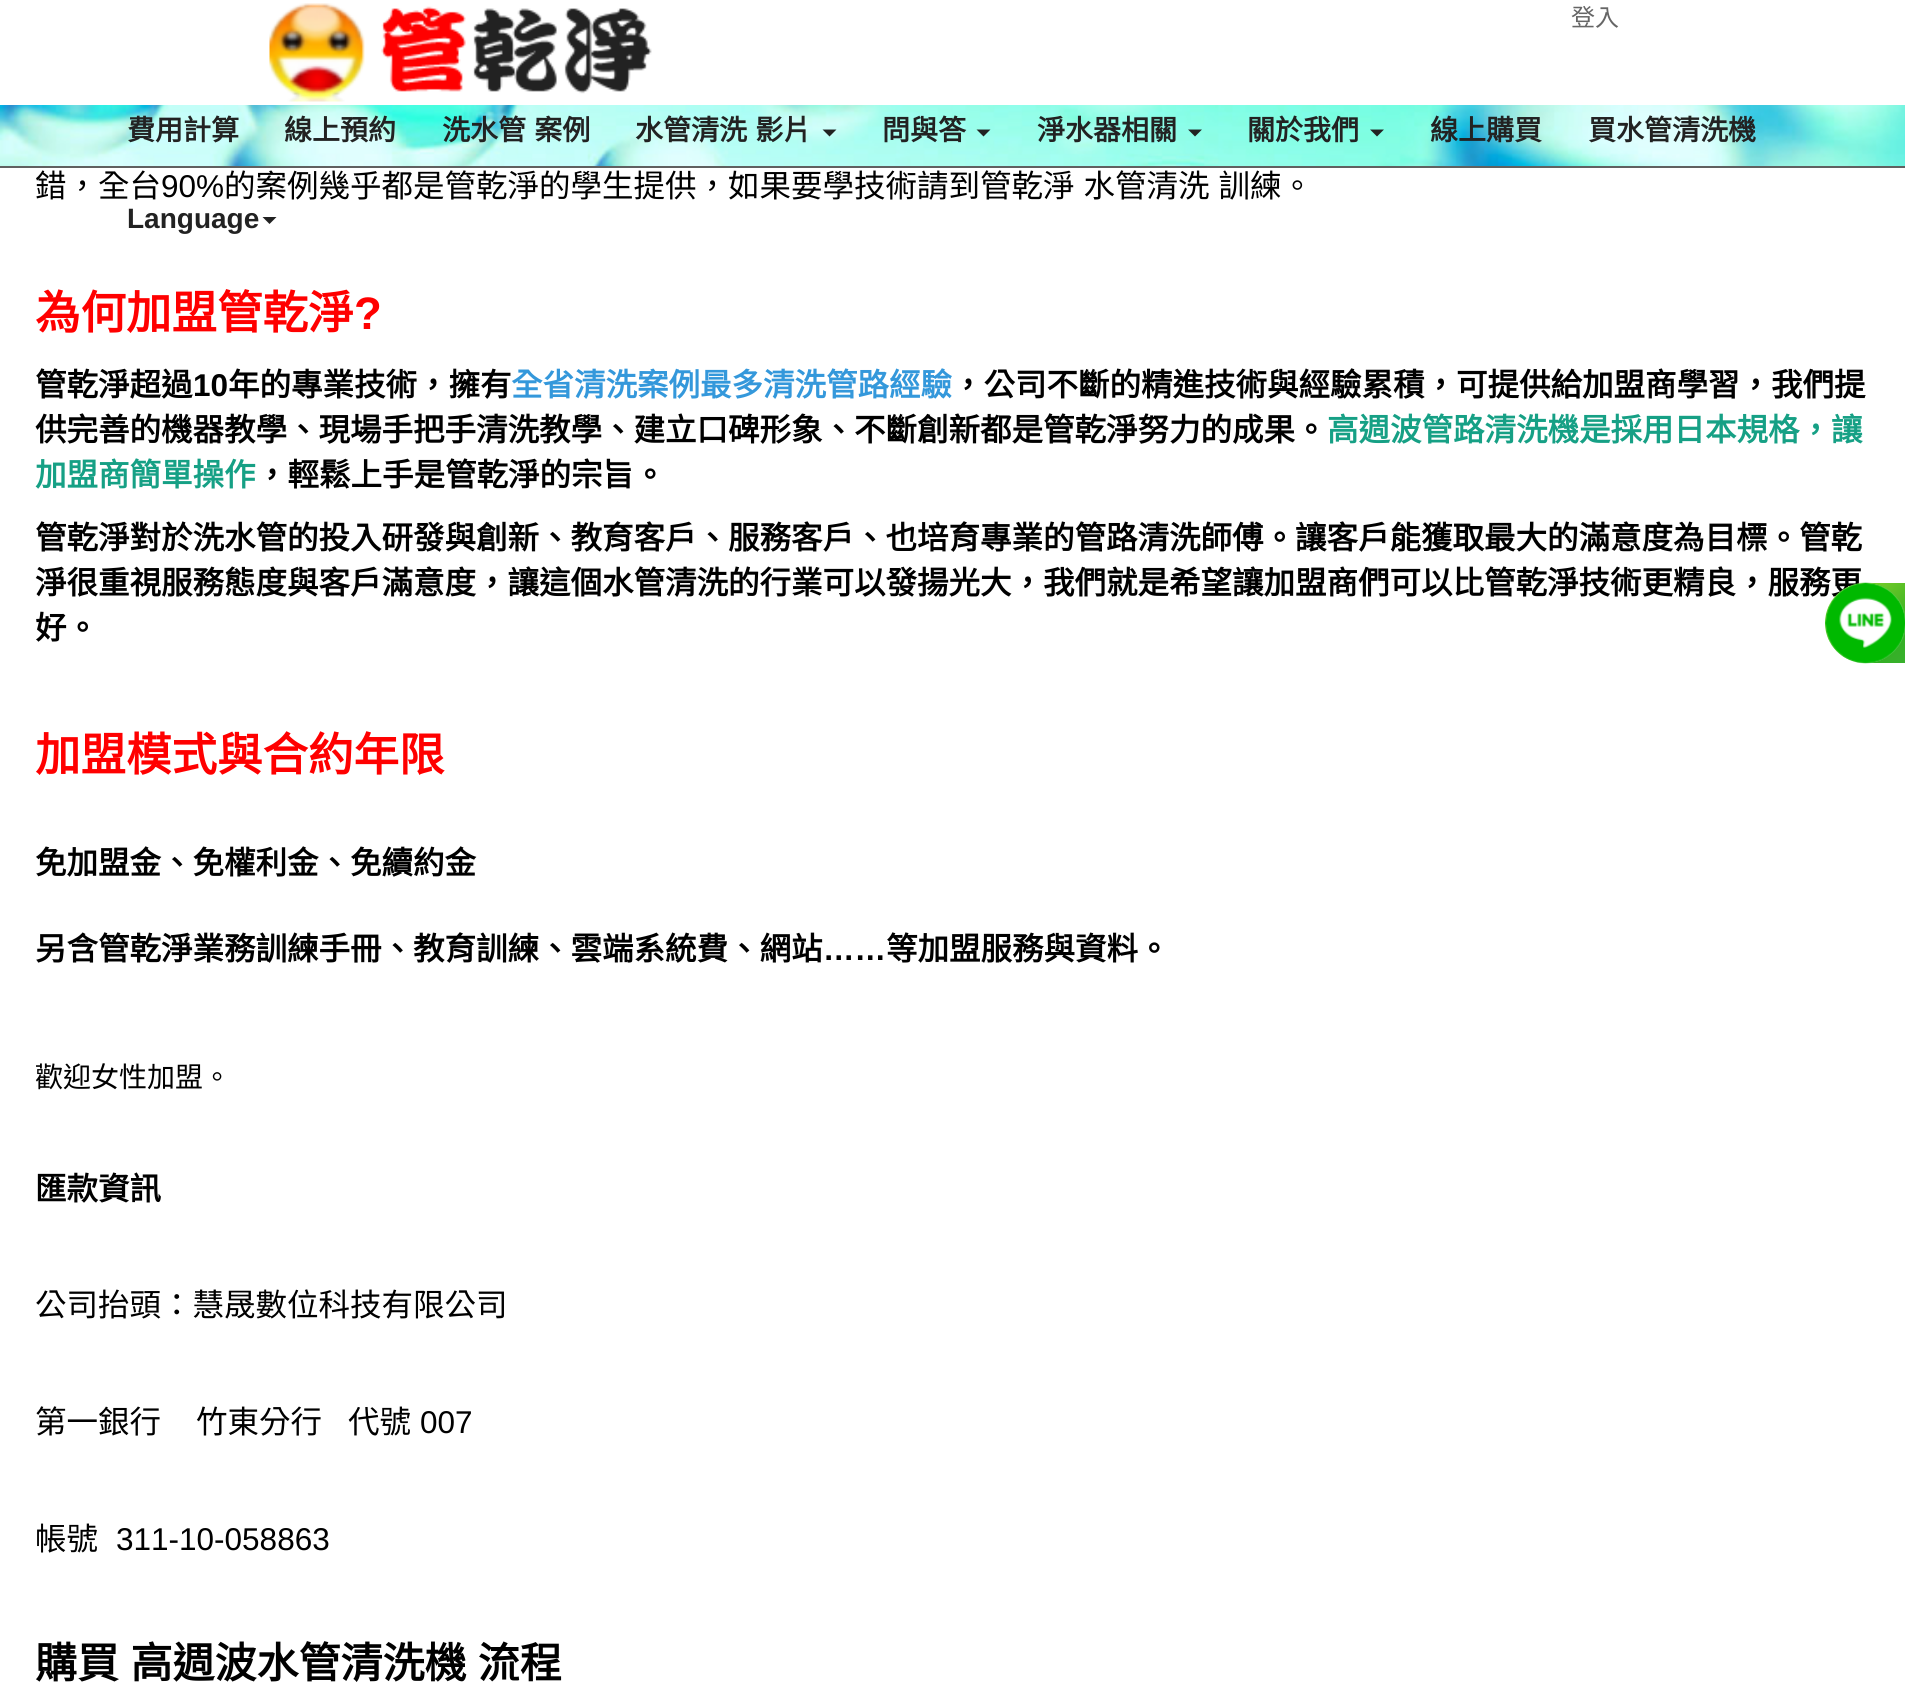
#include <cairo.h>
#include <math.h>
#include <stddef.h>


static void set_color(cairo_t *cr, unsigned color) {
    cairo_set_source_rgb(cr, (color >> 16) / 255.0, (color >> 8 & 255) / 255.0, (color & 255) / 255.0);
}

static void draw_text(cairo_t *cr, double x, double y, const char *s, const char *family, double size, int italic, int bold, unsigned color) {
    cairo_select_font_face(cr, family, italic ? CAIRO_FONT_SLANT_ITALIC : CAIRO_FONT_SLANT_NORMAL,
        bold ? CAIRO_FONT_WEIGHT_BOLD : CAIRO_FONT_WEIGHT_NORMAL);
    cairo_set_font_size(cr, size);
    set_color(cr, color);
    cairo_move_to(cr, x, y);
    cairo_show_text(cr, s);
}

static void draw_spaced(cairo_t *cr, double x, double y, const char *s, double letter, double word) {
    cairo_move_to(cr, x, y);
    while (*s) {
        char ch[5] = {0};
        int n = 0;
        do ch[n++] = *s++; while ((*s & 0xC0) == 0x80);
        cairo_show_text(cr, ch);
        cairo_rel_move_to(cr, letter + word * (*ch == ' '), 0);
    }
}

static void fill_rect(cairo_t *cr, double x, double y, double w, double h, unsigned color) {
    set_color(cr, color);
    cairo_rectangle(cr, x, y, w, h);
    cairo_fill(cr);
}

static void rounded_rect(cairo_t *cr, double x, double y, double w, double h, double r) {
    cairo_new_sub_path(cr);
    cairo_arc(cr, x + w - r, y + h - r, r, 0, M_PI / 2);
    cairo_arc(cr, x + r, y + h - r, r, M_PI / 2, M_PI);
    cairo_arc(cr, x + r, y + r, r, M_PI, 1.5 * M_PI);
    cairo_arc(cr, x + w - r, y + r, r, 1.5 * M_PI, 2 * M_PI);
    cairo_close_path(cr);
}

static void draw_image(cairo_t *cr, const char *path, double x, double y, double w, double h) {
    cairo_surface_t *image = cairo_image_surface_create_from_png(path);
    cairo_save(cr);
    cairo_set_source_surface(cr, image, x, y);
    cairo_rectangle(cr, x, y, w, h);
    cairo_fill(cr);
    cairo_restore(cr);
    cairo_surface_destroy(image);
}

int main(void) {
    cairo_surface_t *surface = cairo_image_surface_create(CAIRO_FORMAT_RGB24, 1905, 1697);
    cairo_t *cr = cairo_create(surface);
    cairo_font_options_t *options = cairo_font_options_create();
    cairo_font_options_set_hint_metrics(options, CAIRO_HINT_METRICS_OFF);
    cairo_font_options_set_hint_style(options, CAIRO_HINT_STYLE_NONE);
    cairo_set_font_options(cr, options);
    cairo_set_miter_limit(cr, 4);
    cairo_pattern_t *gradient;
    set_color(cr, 0xFFFFFF);
    cairo_paint(cr);
    draw_image(cr, "assets/img1.png", 0, 105, 1905, 61);
    fill_rect(cr, 0, 166, 1905, 2, 0x606060);
    draw_image(cr, "assets/img2.png", 269, 3, 383, 99);
    draw_text(cr, 1571, 26, "登入", "Noto Sans CJK TC", 24, 0, 0, 0x666666);
    draw_text(cr, 127, 140, "費用計算", "Noto Sans CJK TC", 28, 0, 1, 0x222222);
    draw_text(cr, 284, 140, "線上預約", "Noto Sans CJK TC", 28, 0, 1, 0x222222);
    draw_spaced(cr, 442, 140, "洗水管 案例", 0, 2);
    draw_spaced(cr, 635, 140, "水管清洗 影片", 0, 2);
    cairo_new_path(cr);
    cairo_move_to(cr, 822.5, 129.5);
    cairo_line_to(cr, 836.5, 129.5);
    cairo_line_to(cr, 829.5, 136.5);
    cairo_close_path(cr);
    cairo_fill(cr);
    draw_text(cr, 882, 140, "問與答", "Noto Sans CJK TC", 28, 0, 1, 0x222222);
    cairo_new_path(cr);
    cairo_move_to(cr, 976.5, 129.5);
    cairo_line_to(cr, 990.5, 129.5);
    cairo_line_to(cr, 983.5, 136.5);
    cairo_close_path(cr);
    cairo_fill(cr);
    draw_text(cr, 1037, 140, "淨水器相關", "Noto Sans CJK TC", 28, 0, 1, 0x222222);
    cairo_new_path(cr);
    cairo_move_to(cr, 1188, 129.5);
    cairo_line_to(cr, 1202, 129.5);
    cairo_line_to(cr, 1195, 136.5);
    cairo_close_path(cr);
    cairo_fill(cr);
    draw_text(cr, 1247, 140, "關於我們", "Noto Sans CJK TC", 28, 0, 1, 0x222222);
    cairo_new_path(cr);
    cairo_move_to(cr, 1370, 129.5);
    cairo_line_to(cr, 1384, 129.5);
    cairo_line_to(cr, 1377, 136.5);
    cairo_close_path(cr);
    cairo_fill(cr);
    draw_text(cr, 1430, 140, "線上購買", "Noto Sans CJK TC", 28, 0, 1, 0x222222);
    draw_text(cr, 1588, 140, "買水管清洗機", "Noto Sans CJK TC", 28, 0, 1, 0x222222);
    draw_text(cr, 127, 228, "Language", "Liberation Sans", 28, 0, 1, 0x222222);
    cairo_new_path(cr);
    cairo_move_to(cr, 262.5, 217);
    cairo_line_to(cr, 276.5, 217);
    cairo_line_to(cr, 269.5, 224);
    cairo_close_path(cr);
    cairo_fill(cr);
    draw_text(cr, 35, 197, "錯，全台", "Noto Sans CJK TC", 31.5, 0, 0, 0x000000);
    draw_text(cr, 161, 197, "90%", "Liberation Sans", 31.5, 0, 0, 0x000000);
    cairo_select_font_face(cr, "Noto Sans CJK TC", CAIRO_FONT_SLANT_NORMAL, CAIRO_FONT_WEIGHT_NORMAL);
    draw_spaced(cr, 224, 197, "的案例幾乎都是管乾淨的學生提供，如果要學技術請到管乾淨 水管清洗 訓練。", 0, 2);
    draw_text(cr, 35, 329, "為何加盟管乾淨", "Noto Sans CJK TC", 45.5, 0, 1, 0xFF0000);
    draw_text(cr, 354, 329, "?", "Liberation Sans", 45.5, 0, 1, 0xFF0000);
    draw_text(cr, 35, 396, "管乾淨超過", "Noto Sans CJK TC", 31.5, 0, 1, 0x000000);
    draw_text(cr, 193, 396, "10", "Liberation Sans", 31.5, 0, 1, 0x000000);
    draw_text(cr, 228, 396, "年的專業技術，擁有", "Noto Sans CJK TC", 31.5, 0, 1, 0x000000);
    draw_text(cr, 511, 396, "全省清洗案例最多清洗管路經驗", "Noto Sans CJK TC", 31.5, 0, 1, 0x3498DB);
    draw_text(cr, 952, 396, "，公司不斷的精進技術與經驗累積，可提供給加盟商學習，我們提", "Noto Sans CJK TC", 31.5, 0, 1, 0x000000);
    draw_text(cr, 35, 441, "供完善的機器教學、現場手把手清洗教學、建立口碑形象、不斷創新都是管乾淨努力的成果。", "Noto Sans CJK TC", 31.5, 0, 1, 0x000000);
    draw_text(cr, 1327, 441, "高週波管路清洗機是採用日本規格，讓", "Noto Sans CJK TC", 31.5, 0, 1, 0x16A085);
    draw_text(cr, 35, 486, "加盟商簡單操作", "Noto Sans CJK TC", 31.5, 0, 1, 0x16A085);
    draw_text(cr, 256, 486, "，輕鬆上手是管乾淨的宗旨。", "Noto Sans CJK TC", 31.5, 0, 1, 0x000000);
    draw_text(cr, 35, 549, "管乾淨對於洗水管的投入研發與創新、教育客戶、服務客戶、也培育專業的管路清洗師傅。讓客戶能獲取最大的滿意度為目標。管乾", "Noto Sans CJK TC", 31.5, 0, 1, 0x000000);
    draw_text(cr, 35, 594, "淨很重視服務態度與客戶滿意度，讓這個水管清洗的行業可以發揚光大，我們就是希望讓加盟商們可以比管乾淨技術更精良，服務更", "Noto Sans CJK TC", 31.5, 0, 1, 0x000000);
    draw_text(cr, 35, 639, "好。", "Noto Sans CJK TC", 31.5, 0, 1, 0x000000);
    draw_text(cr, 35, 771, "加盟模式與合約年限", "Noto Sans CJK TC", 45.5, 0, 1, 0xFF0000);
    draw_text(cr, 35, 874, "免加盟金、免權利金、免續約金", "Noto Sans CJK TC", 31.5, 0, 1, 0x000000);
    draw_text(cr, 35, 960, "另含管乾淨業務訓練手冊、教育訓練、雲端系統費、網站", "Noto Sans CJK TC", 31.5, 0, 1, 0x000000);
    draw_text(cr, 823, 960, "……", "Liberation Sans", 31.5, 0, 1, 0x000000);
    draw_text(cr, 886, 960, "等加盟服務與資料。", "Noto Sans CJK TC", 31.5, 0, 1, 0x000000);
    draw_text(cr, 35, 1087, "歡迎女性加盟。", "Noto Sans CJK TC", 28, 0, 0, 0x000000);
    draw_text(cr, 35, 1200, "匯款資訊", "Noto Sans CJK TC", 31.5, 0, 1, 0x000000);
    draw_text(cr, 35, 1316, "公司抬頭：慧晟數位科技有限公司", "Noto Sans CJK TC", 31.5, 0, 0, 0x000000);
    draw_text(cr, 35, 1433, "第一銀行", "Noto Sans CJK TC", 31.5, 0, 0, 0x000000);
    draw_text(cr, 196, 1433, "竹東分行", "Noto Sans CJK TC", 31.5, 0, 0, 0x000000);
    draw_text(cr, 348, 1433, "代號", "Noto Sans CJK TC", 31.5, 0, 0, 0x000000);
    draw_text(cr, 420, 1433, "007", "Liberation Sans", 31.5, 0, 0, 0x000000);
    draw_text(cr, 35, 1550, "帳號", "Noto Sans CJK TC", 31.5, 0, 0, 0x000000);
    draw_text(cr, 116, 1550, "311-10-058863", "Liberation Sans", 31.5, 0, 0, 0x000000);
    cairo_select_font_face(cr, "Noto Sans CJK TC", CAIRO_FONT_SLANT_NORMAL, CAIRO_FONT_WEIGHT_BOLD);
    cairo_set_font_size(cr, 42);
    draw_spaced(cr, 35, 1678, "購買 高週波水管清洗機 流程", 0, 2);
    gradient = cairo_pattern_create_linear(1884, 524, 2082, 722);
    cairo_pattern_add_color_stop_rgba(gradient, 0.01, 0.612, 0.867, 0.173, 1);
    cairo_pattern_add_color_stop_rgba(gradient, 0.32, 0.2, 0.686, 0.137, 1);
    cairo_pattern_add_color_stop_rgba(gradient, 1, 0.38, 0.737, 0.467, 1);
    cairo_set_source(cr, gradient);
    cairo_pattern_destroy(gradient);
    cairo_new_path(cr);
    cairo_move_to(cr, 1865, 583);
    cairo_line_to(cr, 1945, 583);
    cairo_line_to(cr, 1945, 663);
    cairo_line_to(cr, 1865, 663);
    cairo_curve_to(cr, 1843, 663, 1825, 645, 1825, 623);
    cairo_curve_to(cr, 1825, 601, 1843, 583, 1865, 583);
    cairo_close_path(cr);
    cairo_fill(cr);
    cairo_set_source_rgba(cr, 1, 1, 1, 0.2);
    rounded_rect(cr, 1825, 583, 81, 80, 40);
    cairo_fill(cr);
    draw_image(cr, "assets/img3.png", 1825, 582, 80, 82);
    cairo_surface_write_to_png(surface, "output.png");
    cairo_font_options_destroy(options);
    cairo_destroy(cr);
    cairo_surface_destroy(surface);
    return 0;
}
